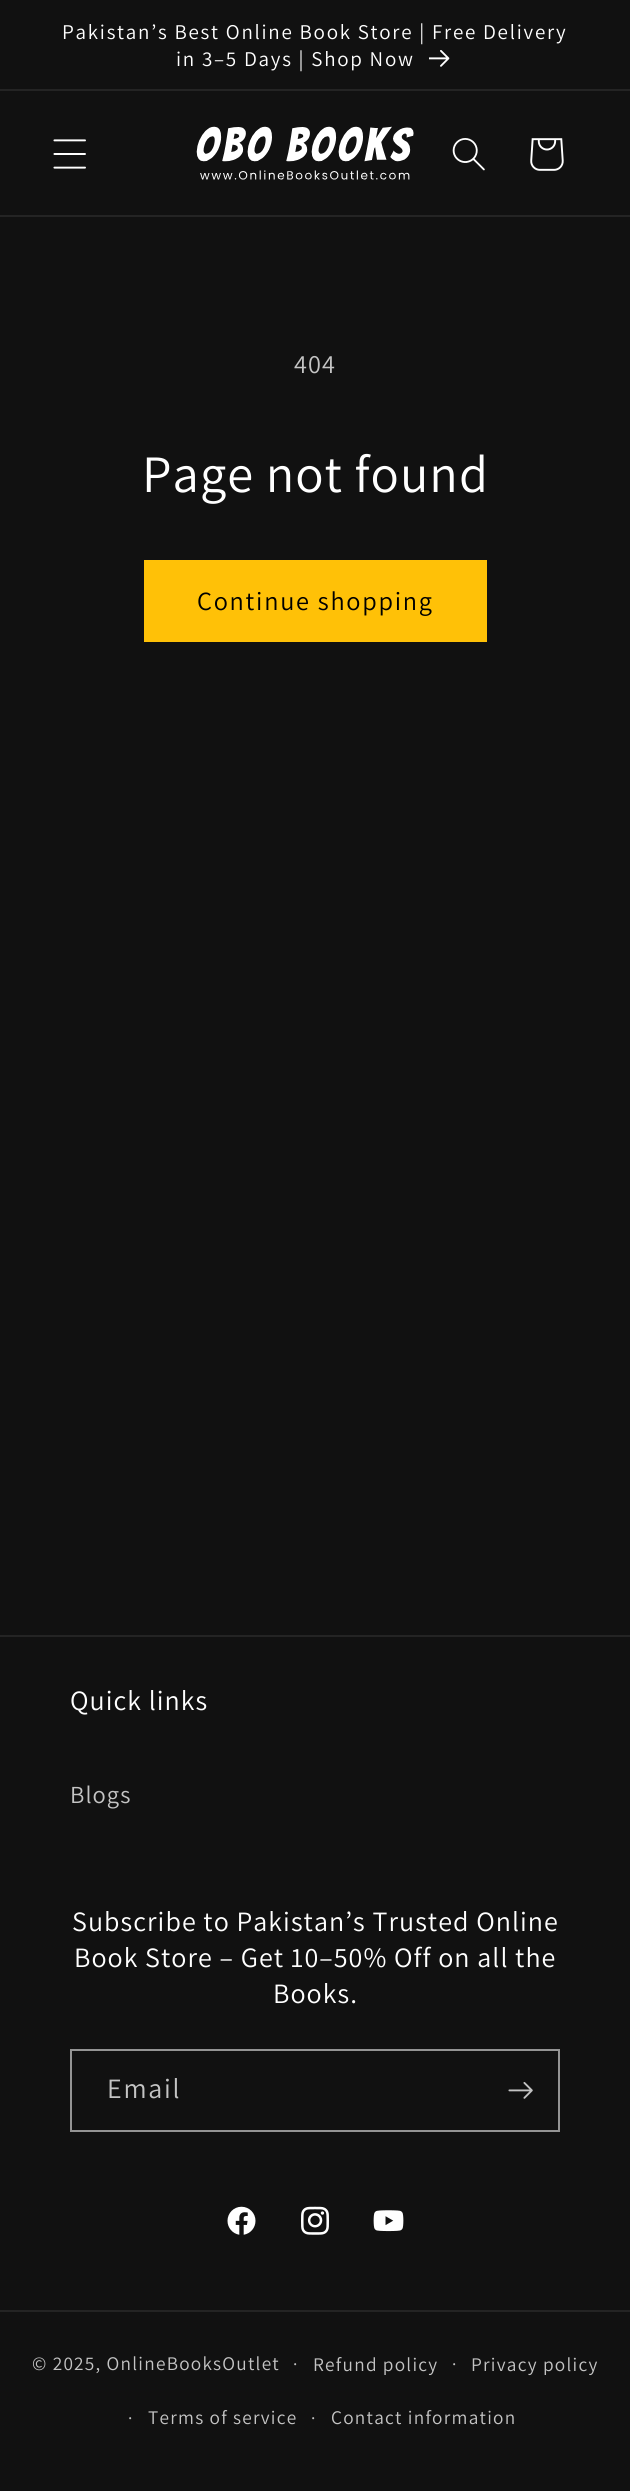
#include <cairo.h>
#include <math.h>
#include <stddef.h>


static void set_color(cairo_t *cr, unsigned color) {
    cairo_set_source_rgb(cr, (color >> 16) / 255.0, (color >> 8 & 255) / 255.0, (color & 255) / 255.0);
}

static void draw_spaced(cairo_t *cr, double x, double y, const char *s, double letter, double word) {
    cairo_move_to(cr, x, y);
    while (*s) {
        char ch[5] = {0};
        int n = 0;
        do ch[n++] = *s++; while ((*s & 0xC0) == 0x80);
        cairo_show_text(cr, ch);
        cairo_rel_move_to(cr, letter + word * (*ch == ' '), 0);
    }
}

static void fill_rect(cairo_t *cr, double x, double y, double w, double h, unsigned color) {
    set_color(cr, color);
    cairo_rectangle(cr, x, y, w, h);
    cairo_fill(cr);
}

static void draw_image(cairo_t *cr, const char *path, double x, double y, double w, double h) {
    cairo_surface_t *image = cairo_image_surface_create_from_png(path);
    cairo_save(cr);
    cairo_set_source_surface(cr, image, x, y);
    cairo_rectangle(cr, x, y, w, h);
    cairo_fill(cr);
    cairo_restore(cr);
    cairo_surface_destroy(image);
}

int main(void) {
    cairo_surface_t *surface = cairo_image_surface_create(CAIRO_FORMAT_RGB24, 630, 2491);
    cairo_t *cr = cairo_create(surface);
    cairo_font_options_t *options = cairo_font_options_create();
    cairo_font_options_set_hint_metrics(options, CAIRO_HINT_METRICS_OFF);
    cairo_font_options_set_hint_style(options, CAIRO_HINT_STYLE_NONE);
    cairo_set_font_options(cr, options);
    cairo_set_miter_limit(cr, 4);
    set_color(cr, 0x111111);
    cairo_paint(cr);
    fill_rect(cr, 0, 89, 630, 2, 0x242424);
    cairo_select_font_face(cr, "Assistant", CAIRO_FONT_SLANT_NORMAL, CAIRO_FONT_WEIGHT_NORMAL);
    cairo_set_font_size(cr, 21);
    set_color(cr, 0xFFFFFF);
    draw_spaced(cr, 62, 39, "Pakistan’s Best Online Book Store | Free Delivery", 1.75, 0);
    draw_spaced(cr, 176, 66, "in 3–5 Days | Shop Now", 1.75, 0);
    draw_image(cr, "assets/img1.png", 429, 50, 21, 17);
    fill_rect(cr, 0, 215, 630, 2, 0x242424);
    draw_image(cr, "assets/img2.png", 53, 139, 33, 30);
    draw_image(cr, "assets/img3.png", 196, 126, 218, 54);
    draw_image(cr, "assets/img4.png", 452, 138, 33, 33);
    draw_image(cr, "assets/img5.png", 530, 138, 34, 33);
    cairo_set_font_size(cr, 26.25);
    set_color(cr, 0xC4C4C4);
    draw_spaced(cr, 294, 373, "404", 1.05, 0);
    cairo_set_font_size(cr, 52.5);
    set_color(cr, 0xFFFFFF);
    draw_spaced(cr, 142, 492, "Page not found", 1.05, 0);
    fill_rect(cr, 144, 560, 343, 82, 0xFFC107);
    cairo_set_font_size(cr, 26.25);
    set_color(cr, 0x000000);
    draw_spaced(cr, 197, 610, "Continue shopping", 1.75, 0);
    fill_rect(cr, 0, 1635, 630, 2, 0x242424);
    cairo_set_font_size(cr, 28);
    set_color(cr, 0xFFFFFF);
    draw_spaced(cr, 70, 1710, "Quick links", 1.05, 0);
    cairo_set_font_size(cr, 24.5);
    set_color(cr, 0xC4C4C4);
    draw_spaced(cr, 70, 1803, "Blogs", 1.05, 0);
    cairo_set_font_size(cr, 28);
    set_color(cr, 0xFFFFFF);
    draw_spaced(cr, 72, 1931, "Subscribe to Pakistan’s Trusted Online", 1.05, 0);
    draw_spaced(cr, 74, 1967, "Book Store – Get 10–50% Off on all the", 1.05, 0);
    draw_spaced(cr, 273, 2003, "Books.", 1.05, 0);
    cairo_rectangle(cr, 71, 2050, 488, 81);
    set_color(cr, 0x949494);
    cairo_stroke(cr);
    set_color(cr, 0xC4C4C4);
    draw_spaced(cr, 107, 2098, "Email", 1.75, 0);
    draw_image(cr, "assets/img6.png", 508, 2082, 25, 17);
    draw_image(cr, "assets/img7.png", 227, 2206, 29, 29);
    draw_image(cr, "assets/img8.png", 301, 2206, 28, 29);
    draw_image(cr, "assets/img9.png", 373, 2210, 31, 22);
    fill_rect(cr, 0, 2310, 630, 2, 0x242424);
    cairo_set_font_size(cr, 19.25);
    set_color(cr, 0xC4C4C4);
    draw_spaced(cr, 32, 2370, "© 2025, OnlineBooksOutlet", 1.25, 0);
    cairo_set_font_size(cr, 18);
    draw_spaced(cr, 293, 2370, "·", 1.25, 0);
    cairo_set_font_size(cr, 19.25);
    draw_spaced(cr, 313, 2371, "Refund policy", 1.25, 0);
    cairo_set_font_size(cr, 18);
    draw_spaced(cr, 452, 2370, "·", 1.25, 0);
    cairo_set_font_size(cr, 19.25);
    draw_spaced(cr, 471, 2371, "Privacy policy", 1.25, 0);
    cairo_set_font_size(cr, 18);
    draw_spaced(cr, 128, 2424, "·", 1.25, 0);
    cairo_set_font_size(cr, 19.25);
    draw_spaced(cr, 148, 2424, "Terms of service", 1.25, 0);
    cairo_set_font_size(cr, 18);
    draw_spaced(cr, 311, 2424, "·", 1.25, 0);
    cairo_set_font_size(cr, 19.25);
    draw_spaced(cr, 331, 2424, "Contact information", 1.25, 0);
    cairo_surface_write_to_png(surface, "output.png");
    cairo_font_options_destroy(options);
    cairo_destroy(cr);
    cairo_surface_destroy(surface);
    return 0;
}
